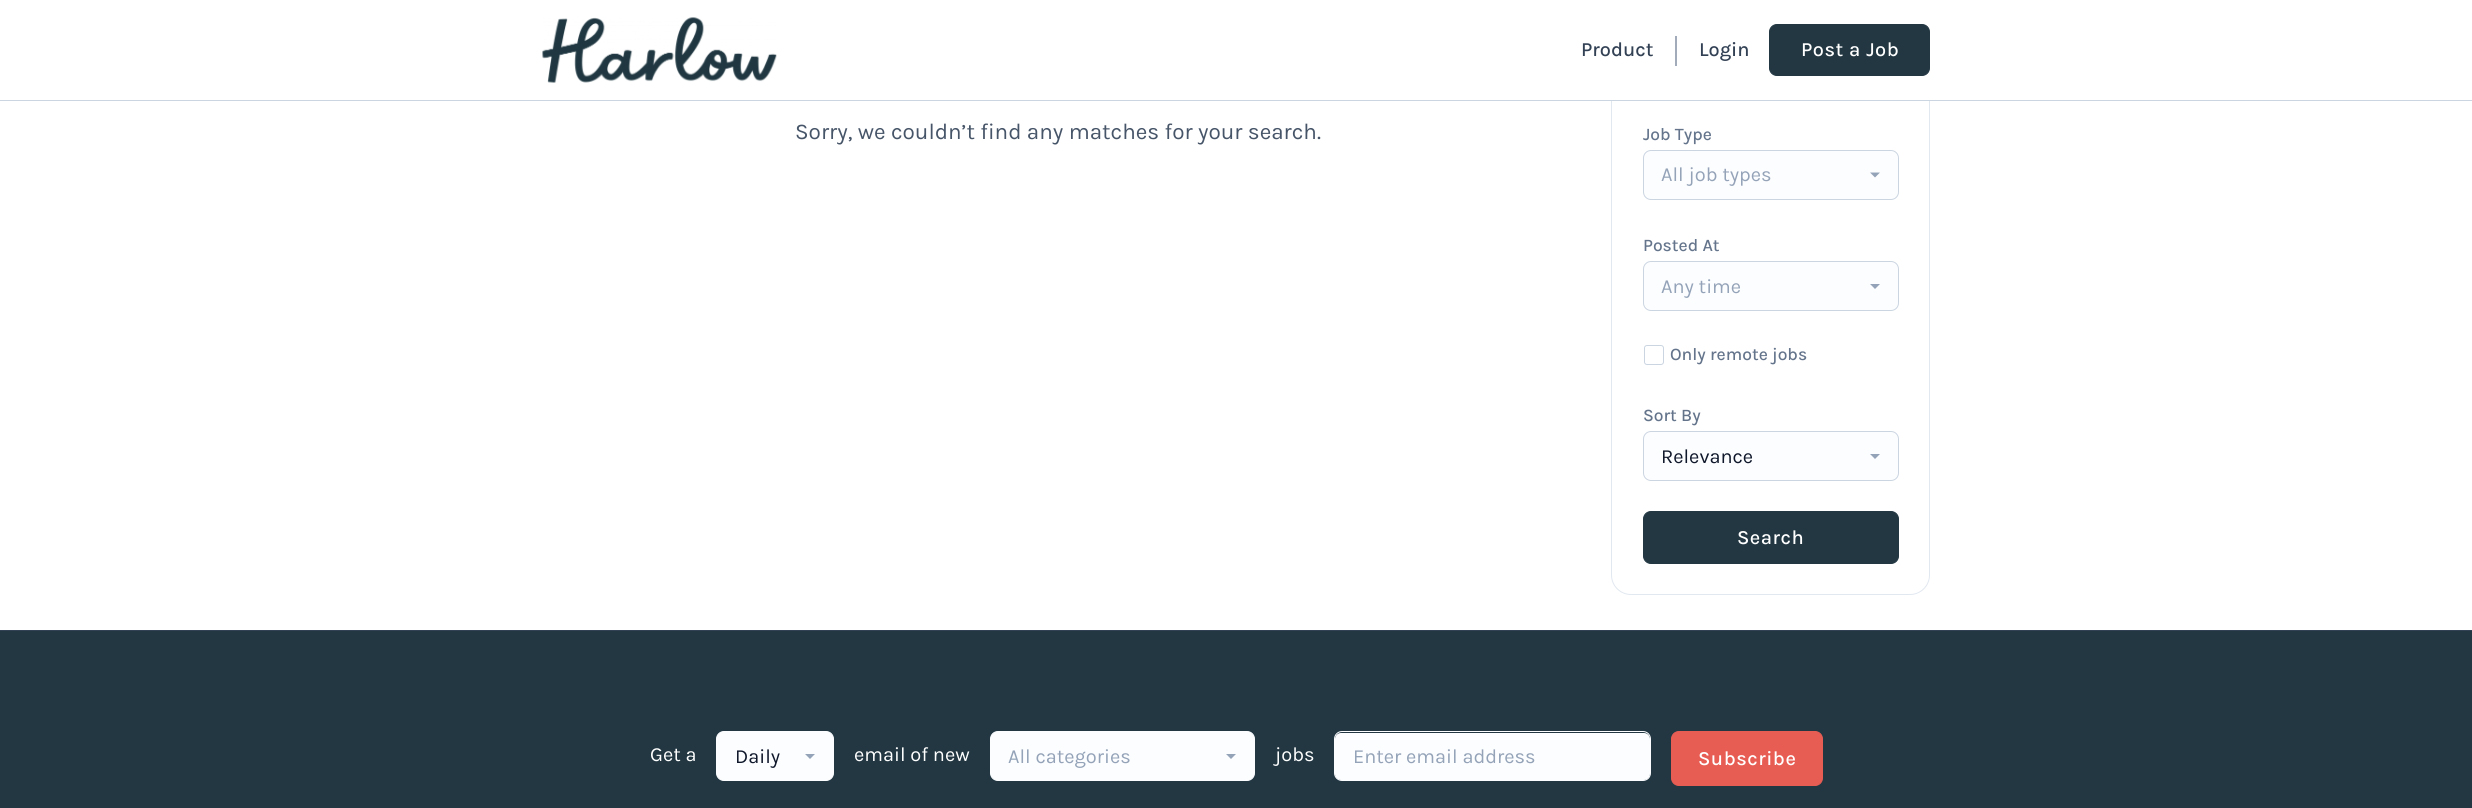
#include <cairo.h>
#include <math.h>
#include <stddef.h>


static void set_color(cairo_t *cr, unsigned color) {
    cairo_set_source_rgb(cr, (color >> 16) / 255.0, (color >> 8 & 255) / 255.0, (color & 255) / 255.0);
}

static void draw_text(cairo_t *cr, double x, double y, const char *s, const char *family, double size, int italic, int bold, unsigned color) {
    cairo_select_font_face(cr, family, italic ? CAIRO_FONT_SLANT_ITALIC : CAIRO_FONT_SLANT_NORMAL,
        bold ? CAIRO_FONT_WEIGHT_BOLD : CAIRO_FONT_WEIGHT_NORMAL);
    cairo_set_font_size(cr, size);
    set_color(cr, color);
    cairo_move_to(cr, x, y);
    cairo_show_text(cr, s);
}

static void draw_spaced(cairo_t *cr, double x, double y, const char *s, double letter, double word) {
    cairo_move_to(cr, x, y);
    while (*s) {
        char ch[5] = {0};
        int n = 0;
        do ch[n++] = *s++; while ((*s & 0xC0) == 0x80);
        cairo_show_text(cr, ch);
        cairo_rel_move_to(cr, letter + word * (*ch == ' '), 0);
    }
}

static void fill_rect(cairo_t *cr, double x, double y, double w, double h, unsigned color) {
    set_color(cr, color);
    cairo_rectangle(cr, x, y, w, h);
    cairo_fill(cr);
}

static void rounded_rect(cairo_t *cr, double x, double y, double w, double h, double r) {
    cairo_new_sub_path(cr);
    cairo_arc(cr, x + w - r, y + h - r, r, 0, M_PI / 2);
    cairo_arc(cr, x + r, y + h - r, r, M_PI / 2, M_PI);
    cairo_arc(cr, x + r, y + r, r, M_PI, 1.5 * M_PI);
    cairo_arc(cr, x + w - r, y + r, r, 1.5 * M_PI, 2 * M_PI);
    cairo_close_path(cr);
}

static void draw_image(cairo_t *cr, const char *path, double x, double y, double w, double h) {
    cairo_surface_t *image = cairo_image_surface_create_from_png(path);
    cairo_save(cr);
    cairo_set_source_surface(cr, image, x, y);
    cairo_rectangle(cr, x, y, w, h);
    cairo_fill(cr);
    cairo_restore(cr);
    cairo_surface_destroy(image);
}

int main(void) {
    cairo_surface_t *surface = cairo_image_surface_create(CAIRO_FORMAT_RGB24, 2472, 808);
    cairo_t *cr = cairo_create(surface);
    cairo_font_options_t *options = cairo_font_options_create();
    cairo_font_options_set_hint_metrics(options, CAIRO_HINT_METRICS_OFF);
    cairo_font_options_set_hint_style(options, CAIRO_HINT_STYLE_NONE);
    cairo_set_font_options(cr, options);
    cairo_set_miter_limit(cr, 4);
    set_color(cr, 0xFFFFFF);
    cairo_paint(cr);
    rounded_rect(cr, 1611.5, -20.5, 318, 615, 19.5);
    set_color(cr, 0xE2E8F0);
    cairo_set_line_width(cr, 1);
    cairo_stroke(cr);
    fill_rect(cr, 1611, 0, 319, 100, 0xFFFFFF);
    fill_rect(cr, 0, 100, 2472, 1, 0xCBD5E1);
    draw_image(cr, "assets/img1.png", 542, 17, 235, 66);
    draw_text(cr, 1581, 56, "Product", "Karla Medium", 20, 0, 0, 0x334155);
    cairo_new_path(cr);
    cairo_move_to(cr, 1676, 36);
    cairo_line_to(cr, 1676, 66);
    set_color(cr, 0x64748B);
    cairo_set_line_width(cr, 1.2);
    cairo_stroke(cr);
    draw_text(cr, 1699, 56, "Login", "Karla Medium", 20, 0, 0, 0x334155);
    set_color(cr, 0x223742);
    rounded_rect(cr, 1769.5, 24.5, 160, 51, 7.5);
    cairo_fill_preserve(cr);
    cairo_set_line_width(cr, 1);
    cairo_stroke(cr);
    set_color(cr, 0xFFFFFF);
    draw_spaced(cr, 1801, 56, "Post a Job", 0.5, 0);
    draw_text(cr, 795, 139, "Sorry, we couldn’t find any matches for your search.", "Karla", 22.5, 0, 0, 0x475569);
    draw_text(cr, 1643, 140, "Job Type", "Karla Medium", 17.5, 0, 0, 0x64748B);
    set_color(cr, 0xFCFDFF);
    rounded_rect(cr, 1643.5, 150.5, 255, 49, 7.5);
    cairo_fill_preserve(cr);
    set_color(cr, 0xCBD5E1);
    cairo_stroke(cr);
    draw_text(cr, 1661, 181, "All job types", "Karla", 20, 0, 0, 0x94A3B8);
    cairo_new_path(cr);
    cairo_move_to(cr, 1870, 172.5);
    cairo_line_to(cr, 1880, 172.5);
    cairo_line_to(cr, 1875, 177.5);
    cairo_close_path(cr);
    cairo_fill(cr);
    draw_text(cr, 1643, 251, "Posted At", "Karla Medium", 17.5, 0, 0, 0x64748B);
    set_color(cr, 0xFCFDFF);
    rounded_rect(cr, 1643.5, 261.5, 255, 49, 7.5);
    cairo_fill_preserve(cr);
    set_color(cr, 0xCBD5E1);
    cairo_stroke(cr);
    draw_text(cr, 1661, 293, "Any time", "Karla", 20, 0, 0, 0x94A3B8);
    cairo_new_path(cr);
    cairo_move_to(cr, 1870, 284);
    cairo_line_to(cr, 1880, 284);
    cairo_line_to(cr, 1875, 289);
    cairo_close_path(cr);
    cairo_fill(cr);
    rounded_rect(cr, 1644.5, 345.5, 19, 19, 2.5);
    set_color(cr, 0xCBD5E1);
    cairo_stroke(cr);
    draw_text(cr, 1670, 360, "Only remote jobs", "Karla Medium", 17.5, 0, 0, 0x64748B);
    draw_text(cr, 1643, 421, "Sort By", "Karla Medium", 17.5, 0, 0, 0x64748B);
    set_color(cr, 0xFCFDFF);
    rounded_rect(cr, 1643.5, 431.5, 255, 49, 7.5);
    cairo_fill_preserve(cr);
    set_color(cr, 0xCBD5E1);
    cairo_stroke(cr);
    draw_text(cr, 1661, 463, "Relevance", "Karla", 20, 0, 0, 0x0F172A);
    set_color(cr, 0x94A3B8);
    cairo_new_path(cr);
    cairo_move_to(cr, 1870, 454);
    cairo_line_to(cr, 1880, 454);
    cairo_line_to(cr, 1875, 459);
    cairo_close_path(cr);
    cairo_fill(cr);
    set_color(cr, 0x223742);
    rounded_rect(cr, 1643.5, 511.5, 255, 52, 7.5);
    cairo_fill_preserve(cr);
    cairo_stroke(cr);
    cairo_select_font_face(cr, "Karla Medium", CAIRO_FONT_SLANT_NORMAL, CAIRO_FONT_WEIGHT_NORMAL);
    set_color(cr, 0xFFFFFF);
    draw_spaced(cr, 1737, 544, "Search", 0.5, 0);
    fill_rect(cr, 0, 631, 2472, 177, 0x223742);
    fill_rect(cr, 0, 630, 2472, 1, 0x334155);
    draw_text(cr, 650, 761, "Get a", "Karla", 20, 0, 0, 0xFFFFFF);
    set_color(cr, 0xFCFDFF);
    rounded_rect(cr, 716.5, 731.5, 117, 49, 7.5);
    cairo_fill_preserve(cr);
    cairo_stroke(cr);
    draw_text(cr, 735, 763, "Daily", "Karla", 20, 0, 0, 0x0F172A);
    set_color(cr, 0x94A3B8);
    cairo_new_path(cr);
    cairo_move_to(cr, 805, 754);
    cairo_line_to(cr, 815, 754);
    cairo_line_to(cr, 810, 759);
    cairo_close_path(cr);
    cairo_fill(cr);
    draw_text(cr, 854, 761, "email of new", "Karla", 20, 0, 0, 0xFFFFFF);
    set_color(cr, 0xFCFDFF);
    rounded_rect(cr, 990.5, 731.5, 264, 49, 7.5);
    cairo_fill_preserve(cr);
    cairo_stroke(cr);
    draw_text(cr, 1008, 763, "All categories", "Karla", 20, 0, 0, 0x94A3B8);
    cairo_new_path(cr);
    cairo_move_to(cr, 1226, 754);
    cairo_line_to(cr, 1236, 754);
    cairo_line_to(cr, 1231, 759);
    cairo_close_path(cr);
    cairo_fill(cr);
    draw_text(cr, 1275, 761, "jobs", "Karla", 20, 0, 0, 0xFFFFFF);
    set_color(cr, 0xFCFDFF);
    rounded_rect(cr, 1335, 733, 315, 47, 6);
    cairo_fill(cr);
    rounded_rect(cr, 1334.5, 731.5, 316, 49, 7.5);
    cairo_stroke(cr);
    draw_text(cr, 1353, 763, "Enter email address", "Karla", 20, 0, 0, 0x94A3B8);
    set_color(cr, 0xE75D54);
    rounded_rect(cr, 1671.5, 731.5, 151, 54, 7.5);
    cairo_fill_preserve(cr);
    cairo_stroke(cr);
    cairo_select_font_face(cr, "Karla Medium", CAIRO_FONT_SLANT_NORMAL, CAIRO_FONT_WEIGHT_NORMAL);
    set_color(cr, 0xFFFFFF);
    draw_spaced(cr, 1698, 765, "Subscribe", 0.5, 0);
    cairo_surface_write_to_png(surface, "output.png");
    cairo_font_options_destroy(options);
    cairo_destroy(cr);
    cairo_surface_destroy(surface);
    return 0;
}
